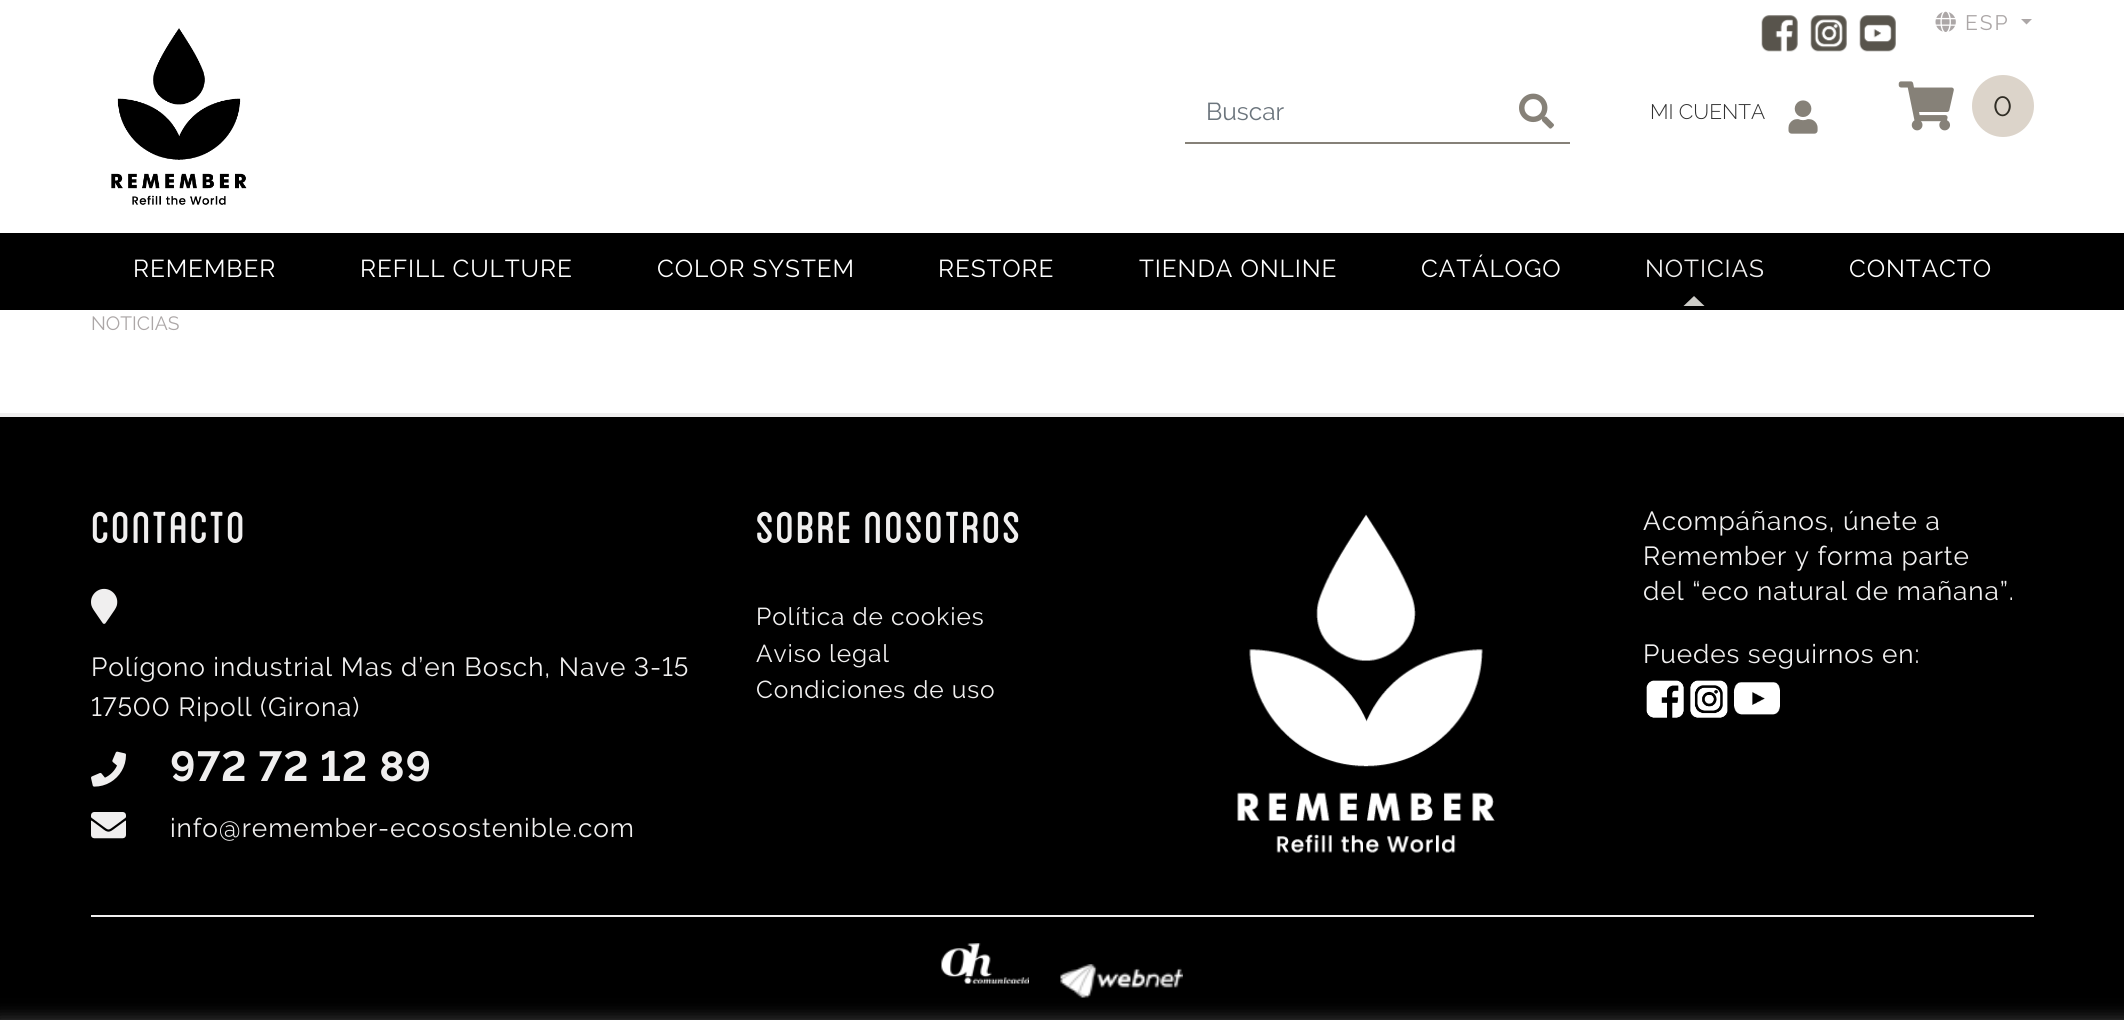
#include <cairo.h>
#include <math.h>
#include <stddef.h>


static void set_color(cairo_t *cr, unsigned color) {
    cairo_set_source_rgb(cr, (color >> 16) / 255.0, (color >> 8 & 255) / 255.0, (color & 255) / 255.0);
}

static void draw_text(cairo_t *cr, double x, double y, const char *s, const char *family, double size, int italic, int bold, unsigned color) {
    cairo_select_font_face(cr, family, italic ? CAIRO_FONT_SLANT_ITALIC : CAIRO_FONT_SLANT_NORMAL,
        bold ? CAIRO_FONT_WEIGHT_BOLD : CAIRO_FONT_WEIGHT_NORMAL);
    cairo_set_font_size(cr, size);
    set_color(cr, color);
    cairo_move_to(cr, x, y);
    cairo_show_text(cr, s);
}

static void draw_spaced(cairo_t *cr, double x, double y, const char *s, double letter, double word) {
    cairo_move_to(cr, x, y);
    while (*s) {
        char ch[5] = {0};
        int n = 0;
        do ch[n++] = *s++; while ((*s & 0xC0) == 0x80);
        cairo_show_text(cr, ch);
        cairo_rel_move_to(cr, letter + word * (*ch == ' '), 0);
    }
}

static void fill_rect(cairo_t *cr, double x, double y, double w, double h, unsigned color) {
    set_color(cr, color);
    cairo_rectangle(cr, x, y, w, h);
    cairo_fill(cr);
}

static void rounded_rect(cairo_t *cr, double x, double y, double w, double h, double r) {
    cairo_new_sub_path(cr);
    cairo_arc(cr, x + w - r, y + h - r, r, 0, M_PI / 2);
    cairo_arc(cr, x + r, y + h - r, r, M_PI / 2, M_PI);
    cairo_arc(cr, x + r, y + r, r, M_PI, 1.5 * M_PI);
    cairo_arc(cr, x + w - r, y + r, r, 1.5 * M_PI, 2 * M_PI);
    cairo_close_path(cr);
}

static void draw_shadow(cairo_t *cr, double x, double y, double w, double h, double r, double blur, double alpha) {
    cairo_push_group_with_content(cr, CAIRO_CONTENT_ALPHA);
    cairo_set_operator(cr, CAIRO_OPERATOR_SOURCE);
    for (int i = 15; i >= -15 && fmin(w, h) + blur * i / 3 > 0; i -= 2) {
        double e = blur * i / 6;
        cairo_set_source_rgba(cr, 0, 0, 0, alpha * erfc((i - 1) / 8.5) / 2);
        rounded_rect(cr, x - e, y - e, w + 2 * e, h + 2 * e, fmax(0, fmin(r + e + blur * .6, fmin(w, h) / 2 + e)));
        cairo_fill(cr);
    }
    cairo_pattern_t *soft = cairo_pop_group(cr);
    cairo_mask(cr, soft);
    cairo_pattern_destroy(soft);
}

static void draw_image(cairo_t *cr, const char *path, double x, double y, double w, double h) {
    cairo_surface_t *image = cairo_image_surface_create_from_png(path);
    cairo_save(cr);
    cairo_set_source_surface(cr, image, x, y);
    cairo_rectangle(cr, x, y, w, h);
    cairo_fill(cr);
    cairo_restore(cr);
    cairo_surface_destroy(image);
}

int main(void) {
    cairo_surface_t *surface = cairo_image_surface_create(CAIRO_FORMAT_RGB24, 2124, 1025);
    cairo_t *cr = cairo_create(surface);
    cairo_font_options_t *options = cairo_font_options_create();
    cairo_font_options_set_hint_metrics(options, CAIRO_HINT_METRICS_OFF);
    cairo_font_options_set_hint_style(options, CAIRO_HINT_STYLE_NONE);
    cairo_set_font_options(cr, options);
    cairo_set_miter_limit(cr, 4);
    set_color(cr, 0xFFFFFF);
    cairo_paint(cr);
    draw_image(cr, "assets/img1.png", 111, 28, 136, 177);
    draw_image(cr, "assets/img2.png", 1761, 15, 37, 37);
    draw_image(cr, "assets/img3.png", 1810, 15, 37, 37);
    draw_image(cr, "assets/img4.png", 1859, 15, 37, 37);
    draw_image(cr, "assets/img5.png", 1935, 11, 21, 21);
    cairo_select_font_face(cr, "Raleway", CAIRO_FONT_SLANT_NORMAL, CAIRO_FONT_WEIGHT_NORMAL);
    cairo_set_font_size(cr, 21);
    set_color(cr, 0xACA7A7);
    draw_spaced(cr, 1965, 30, "ESP", 2, 0);
    cairo_new_path(cr);
    cairo_move_to(cr, 2021, 19);
    cairo_line_to(cr, 2032, 19);
    cairo_line_to(cr, 2026.5, 24.5);
    cairo_close_path(cr);
    cairo_fill(cr);
    fill_rect(cr, 1185, 142, 385, 2, 0x868178);
    draw_text(cr, 1206, 120, "Buscar", "Raleway", 24.5, 0, 0, 0x6C757D);
    draw_image(cr, "assets/img6.png", 1519, 93, 35, 36);
    draw_text(cr, 1650, 119, "MI CUENTA", "Raleway Light", 21, 0, 0, 0x313131);
    draw_image(cr, "assets/img7.png", 1788, 100, 30, 34);
    draw_image(cr, "assets/img8.png", 1898, 81, 56, 50);
    set_color(cr, 0xDCD4CA);
    cairo_arc(cr, 2003, 106, 31, 0, 2 * M_PI);
    cairo_fill(cr);
    draw_text(cr, 1993, 116, "0", "Raleway", 28, 0, 0, 0x2F2C24);
    fill_rect(cr, 0, 233, 2124, 77, 0x000000);
    cairo_set_font_size(cr, 24.5);
    set_color(cr, 0xFFFFFF);
    draw_spaced(cr, 133, 277, "REMEMBER", 0.9, 0);
    draw_spaced(cr, 360, 277, "REFILL CULTURE", 0.9, 0);
    draw_spaced(cr, 657, 277, "COLOR SYSTEM", 0.9, 0);
    draw_spaced(cr, 938, 277, "RESTORE", 0.9, 0);
    draw_spaced(cr, 1139, 277, "TIENDA ONLINE", 0.9, 0);
    draw_spaced(cr, 1421, 277, "CATÁLOGO", 0.9, 0);
    set_color(cr, 0xF0EFEF);
    draw_spaced(cr, 1645, 277, "NOTICIAS", 0.9, 0);
    set_color(cr, 0xCDCCC8);
    cairo_new_path(cr);
    cairo_move_to(cr, 1704.5, 306);
    cairo_line_to(cr, 1683.5, 306);
    cairo_line_to(cr, 1694, 296);
    cairo_close_path(cr);
    cairo_fill(cr);
    set_color(cr, 0xFFFFFF);
    draw_spaced(cr, 1849, 277, "CONTACTO", 0.9, 0);
    draw_text(cr, 91, 330, "NOTICIAS", "Raleway", 19.25, 0, 0, 0xACA7A7);
    fill_rect(cr, 0, 417, 2124, 603, 0x000000);
    fill_rect(cr, 0, 413, 2124, 4, 0xF0EFEF);
    cairo_select_font_face(cr, "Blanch", CAIRO_FONT_SLANT_NORMAL, CAIRO_FONT_WEIGHT_NORMAL);
    cairo_set_font_size(cr, 63);
    draw_spaced(cr, 91, 543, "Contacto", 0.9, 0);
    draw_image(cr, "assets/img9.png", 91, 588, 27, 36);
    cairo_select_font_face(cr, "Raleway", CAIRO_FONT_SLANT_NORMAL, CAIRO_FONT_WEIGHT_NORMAL);
    cairo_set_font_size(cr, 26.25);
    draw_spaced(cr, 91, 676, "Polígono industrial Mas d’en Bosch, Nave 3-15", 0.9, 0);
    draw_spaced(cr, 91, 716, "17500 Ripoll (Girona)", 0.9, 0);
    draw_image(cr, "assets/img10.png", 91, 751, 35, 36);
    cairo_select_font_face(cr, "Raleway", CAIRO_FONT_SLANT_NORMAL, CAIRO_FONT_WEIGHT_BOLD);
    cairo_set_font_size(cr, 42);
    draw_spaced(cr, 170, 781, "972 72 12 89", 0.9, 0);
    draw_image(cr, "assets/img11.png", 91, 812, 35, 27);
    cairo_select_font_face(cr, "Raleway", CAIRO_FONT_SLANT_NORMAL, CAIRO_FONT_WEIGHT_NORMAL);
    cairo_set_font_size(cr, 26.25);
    draw_spaced(cr, 170, 837, "info@remember-ecosostenible.com", 0.9, 0);
    cairo_select_font_face(cr, "Blanch", CAIRO_FONT_SLANT_NORMAL, CAIRO_FONT_WEIGHT_NORMAL);
    cairo_set_font_size(cr, 63);
    draw_spaced(cr, 756, 543, "Sobre nosotros", 0.9, 0);
    cairo_select_font_face(cr, "Raleway", CAIRO_FONT_SLANT_NORMAL, CAIRO_FONT_WEIGHT_NORMAL);
    cairo_set_font_size(cr, 24.5);
    draw_spaced(cr, 756, 625, "Política de cookies", 0.9, 0);
    draw_spaced(cr, 756, 662, "Aviso legal", 0.9, 0);
    draw_spaced(cr, 756, 698, "Condiciones de uso", 0.9, 0);
    draw_image(cr, "assets/img12.png", 1237, 514, 258, 339);
    cairo_set_font_size(cr, 26.25);
    draw_spaced(cr, 1643, 530, "Acompáñanos, únete a", 0.9, 0);
    draw_spaced(cr, 1643, 565, "Remember y forma parte", 0.9, 0);
    draw_spaced(cr, 1643, 600, "del “eco natural de mañana”.", 0.9, 0);
    draw_spaced(cr, 1643, 663, "Puedes seguirnos en:", 0.9, 0);
    draw_image(cr, "assets/img13.png", 1646, 680, 38, 38);
    draw_image(cr, "assets/img14.png", 1690, 680, 38, 38);
    draw_image(cr, "assets/img15.png", 1733, 682, 47, 33);
    fill_rect(cr, 91, 915, 1943, 2, 0xF0EFEF);
    draw_image(cr, "assets/img16.png", 941, 943, 88, 41);
    draw_image(cr, "assets/img17.png", 1060, 964, 123, 34);
    set_color(cr, 0x444444);
    draw_shadow(cr, 0, 1020, 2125, 5, 0, 9, 1);
    fill_rect(cr, 0, 1020, 2124, 5, 0xFFFFFF);
    cairo_surface_write_to_png(surface, "output.png");
    cairo_font_options_destroy(options);
    cairo_destroy(cr);
    cairo_surface_destroy(surface);
    return 0;
}
